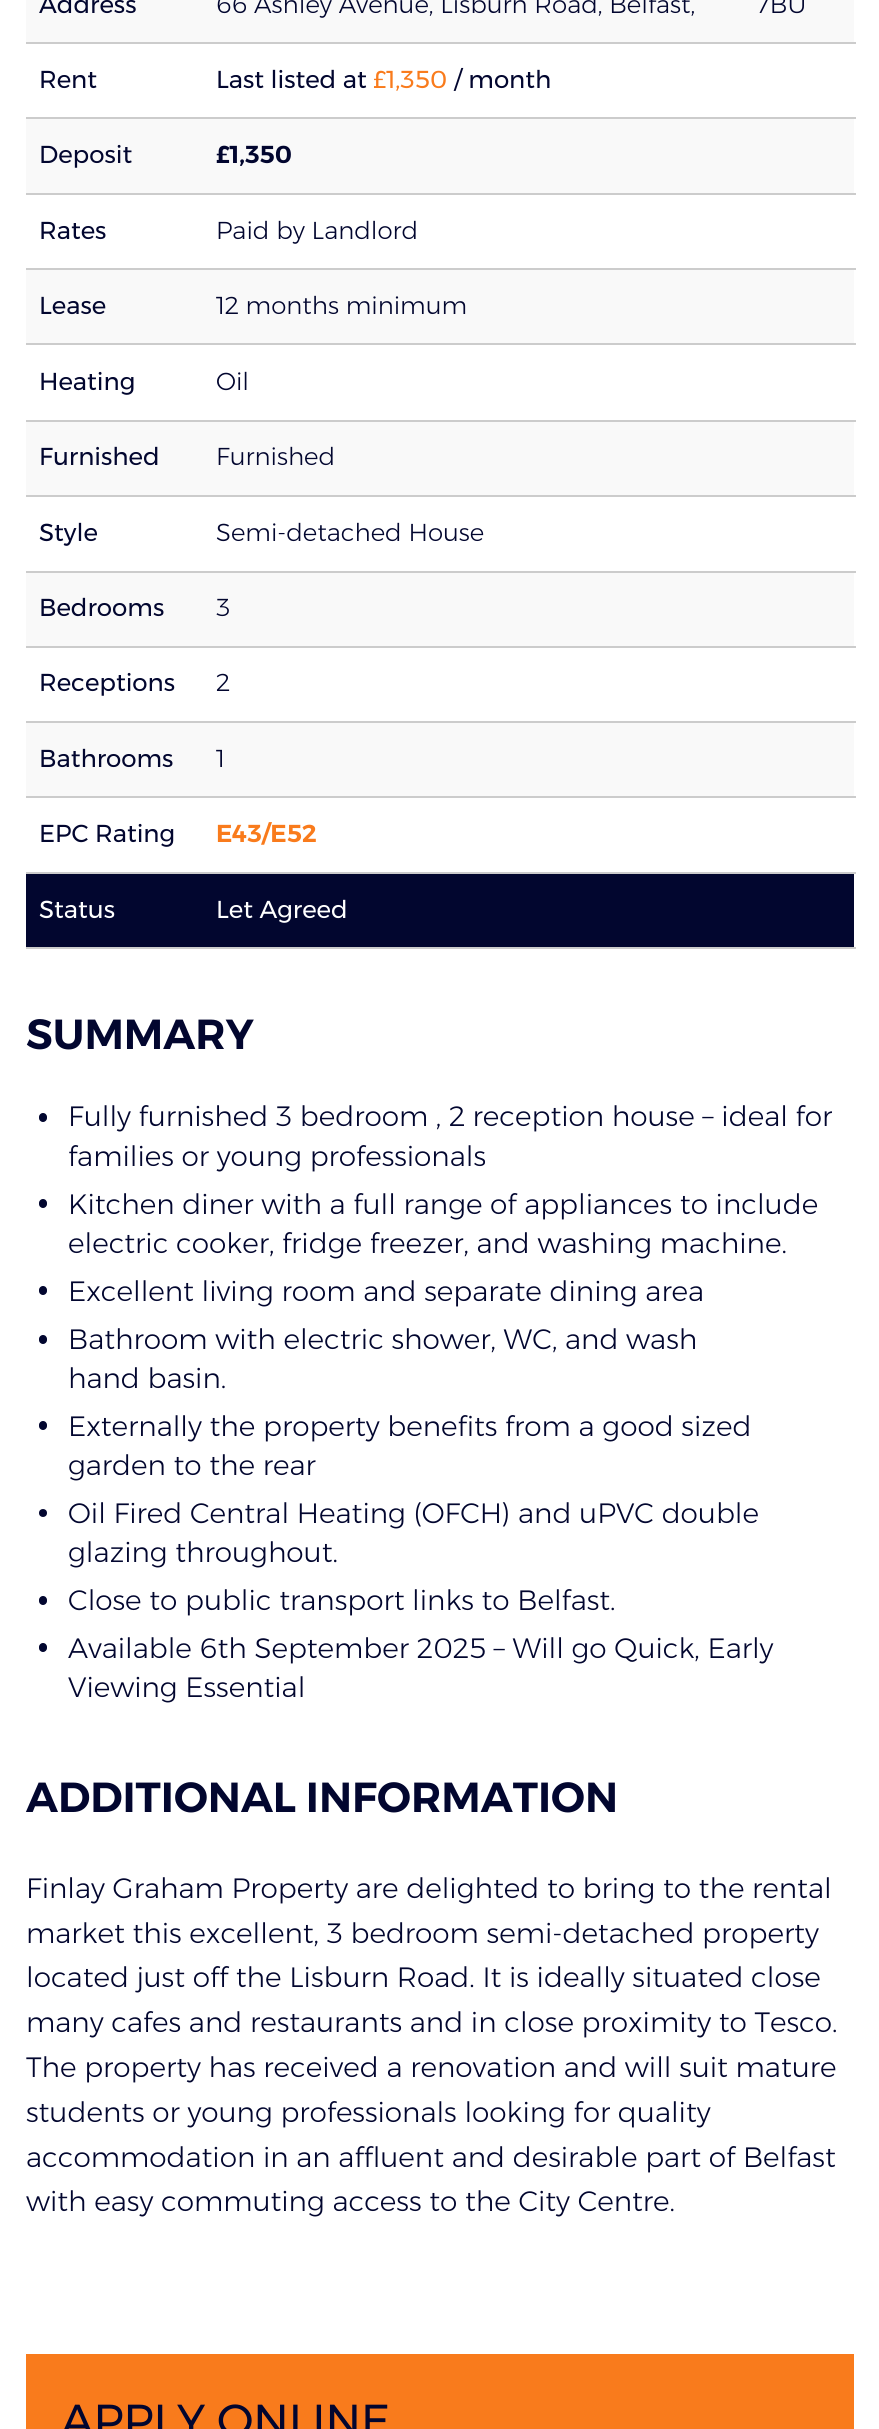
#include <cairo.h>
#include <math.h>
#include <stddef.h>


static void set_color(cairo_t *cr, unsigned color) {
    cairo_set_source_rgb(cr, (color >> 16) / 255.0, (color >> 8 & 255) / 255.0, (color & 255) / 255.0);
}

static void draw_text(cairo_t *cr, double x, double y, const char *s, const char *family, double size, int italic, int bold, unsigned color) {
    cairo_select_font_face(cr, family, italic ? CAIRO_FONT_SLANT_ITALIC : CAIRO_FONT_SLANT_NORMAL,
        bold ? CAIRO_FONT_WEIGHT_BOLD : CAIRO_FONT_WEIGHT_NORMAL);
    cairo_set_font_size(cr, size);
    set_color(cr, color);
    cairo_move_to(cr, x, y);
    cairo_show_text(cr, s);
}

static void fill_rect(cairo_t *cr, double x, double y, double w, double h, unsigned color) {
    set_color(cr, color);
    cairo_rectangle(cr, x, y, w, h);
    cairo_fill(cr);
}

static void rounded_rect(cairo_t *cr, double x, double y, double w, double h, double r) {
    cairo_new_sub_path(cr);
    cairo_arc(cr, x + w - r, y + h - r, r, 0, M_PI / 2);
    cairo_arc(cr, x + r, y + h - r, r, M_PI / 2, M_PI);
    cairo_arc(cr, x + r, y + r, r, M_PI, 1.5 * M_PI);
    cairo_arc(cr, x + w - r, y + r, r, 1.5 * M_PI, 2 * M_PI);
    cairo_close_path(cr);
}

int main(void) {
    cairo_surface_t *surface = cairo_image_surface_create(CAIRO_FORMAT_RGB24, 879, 2429);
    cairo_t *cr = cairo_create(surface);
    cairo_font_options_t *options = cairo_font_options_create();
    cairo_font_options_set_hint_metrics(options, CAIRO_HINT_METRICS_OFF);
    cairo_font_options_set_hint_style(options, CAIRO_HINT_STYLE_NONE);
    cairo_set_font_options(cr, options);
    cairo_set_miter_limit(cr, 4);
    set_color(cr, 0xFFFFFF);
    cairo_paint(cr);
    fill_rect(cr, 26, 0, 828, 42, 0xF9F9F9);
    draw_text(cr, 39, 13, "Address", "Montserrat", 24.5, 0, 0, 0x02062F);
    fill_rect(cr, 26, 42, 830, 2, 0xCCCCCC);
    draw_text(cr, 216, 13, "66 Ashley Avenue, Lisburn Road, Belfast,", "Montserrat Light", 24.5, 0, 0, 0x02062F);
    draw_text(cr, 756, 13, "7BU", "Montserrat Light", 24.5, 0, 0, 0x02062F);
    draw_text(cr, 39, 88, "Rent", "Montserrat", 24.5, 0, 0, 0x02062F);
    fill_rect(cr, 26, 117, 830, 2, 0xCCCCCC);
    draw_text(cr, 216, 88, "Last listed at", "Montserrat", 24.5, 0, 0, 0x02062F);
    draw_text(cr, 373, 88, "£1,350", "Montserrat", 24.5, 0, 0, 0xF97B1C);
    draw_text(cr, 454, 88, "/ month", "Montserrat", 24.5, 0, 0, 0x02062F);
    fill_rect(cr, 26, 119, 828, 74, 0xF9F9F9);
    draw_text(cr, 39, 163, "Deposit", "Montserrat", 24.5, 0, 0, 0x02062F);
    fill_rect(cr, 26, 193, 830, 2, 0xCCCCCC);
    draw_text(cr, 216, 163, "£1,350", "Montserrat SemiBold", 24.5, 0, 0, 0x02062F);
    draw_text(cr, 39, 239, "Rates", "Montserrat", 24.5, 0, 0, 0x02062F);
    fill_rect(cr, 26, 268, 830, 2, 0xCCCCCC);
    draw_text(cr, 216, 239, "Paid by Landlord", "Montserrat Light", 24.5, 0, 0, 0x02062F);
    fill_rect(cr, 26, 270, 828, 73, 0xF9F9F9);
    draw_text(cr, 39, 314, "Lease", "Montserrat", 24.5, 0, 0, 0x02062F);
    fill_rect(cr, 26, 343, 830, 2, 0xCCCCCC);
    draw_text(cr, 216, 314, "12 months minimum", "Montserrat Light", 24.5, 0, 0, 0x02062F);
    draw_text(cr, 39, 390, "Heating", "Montserrat", 24.5, 0, 0, 0x02062F);
    fill_rect(cr, 26, 420, 830, 2, 0xCCCCCC);
    draw_text(cr, 216, 390, "Oil", "Montserrat Light", 24.5, 0, 0, 0x02062F);
    fill_rect(cr, 26, 422, 828, 73, 0xF9F9F9);
    draw_text(cr, 39, 465, "Furnished", "Montserrat", 24.5, 0, 0, 0x02062F);
    fill_rect(cr, 26, 495, 830, 2, 0xCCCCCC);
    draw_text(cr, 216, 465, "Furnished", "Montserrat Light", 24.5, 0, 0, 0x02062F);
    draw_text(cr, 39, 541, "Style", "Montserrat", 24.5, 0, 0, 0x02062F);
    fill_rect(cr, 26, 571, 830, 2, 0xCCCCCC);
    draw_text(cr, 216, 541, "Semi-detached House", "Montserrat Light", 24.5, 0, 0, 0x02062F);
    fill_rect(cr, 26, 573, 828, 73, 0xF9F9F9);
    draw_text(cr, 39, 616, "Bedrooms", "Montserrat", 24.5, 0, 0, 0x02062F);
    fill_rect(cr, 26, 646, 830, 2, 0xCCCCCC);
    draw_text(cr, 216, 616, "3", "Montserrat Light", 24.5, 0, 0, 0x02062F);
    draw_text(cr, 39, 691, "Receptions", "Montserrat", 24.5, 0, 0, 0x02062F);
    fill_rect(cr, 26, 721, 830, 2, 0xCCCCCC);
    draw_text(cr, 216, 691, "2", "Montserrat Light", 24.5, 0, 0, 0x02062F);
    fill_rect(cr, 26, 723, 828, 73, 0xF9F9F9);
    draw_text(cr, 39, 767, "Bathrooms", "Montserrat", 24.5, 0, 0, 0x02062F);
    fill_rect(cr, 26, 796, 830, 2, 0xCCCCCC);
    draw_text(cr, 216, 767, "1", "Montserrat Light", 24.5, 0, 0, 0x02062F);
    draw_text(cr, 39, 842, "EPC Rating", "Montserrat", 24.5, 0, 0, 0x02062F);
    fill_rect(cr, 26, 872, 830, 2, 0xCCCCCC);
    draw_text(cr, 216, 842, "E43/E52", "Montserrat SemiBold", 24.5, 0, 0, 0xF97B1C);
    fill_rect(cr, 26, 874, 828, 73, 0x02062F);
    draw_text(cr, 39, 918, "Status", "Montserrat", 24.5, 0, 0, 0xFFFFFF);
    fill_rect(cr, 26, 947, 830, 2, 0xCCCCCC);
    draw_text(cr, 216, 918, "Let Agreed", "Montserrat", 24.5, 0, 0, 0xFFFFFF);
    draw_text(cr, 26, 1049, "SUMMARY", "Montserrat SemiBold", 42, 0, 0, 0x02062F);
    rounded_rect(cr, 39, 1113, 8, 9, 4);
    cairo_fill(cr);
    draw_text(cr, 68, 1126, "Fully furnished 3 bedroom , 2 reception house – ideal for", "Montserrat Light", 28, 0, 0, 0x02062F);
    draw_text(cr, 68, 1166, "families or young professionals", "Montserrat Light", 28, 0, 0, 0x02062F);
    rounded_rect(cr, 39, 1199, 8, 9, 4);
    cairo_fill(cr);
    draw_text(cr, 68, 1214, "Kitchen diner with a full range of appliances to include", "Montserrat Light", 28, 0, 0, 0x02062F);
    draw_text(cr, 68, 1253, "electric cooker, fridge freezer, and washing machine.", "Montserrat Light", 28, 0, 0, 0x02062F);
    rounded_rect(cr, 39, 1286, 8, 9, 4);
    cairo_fill(cr);
    draw_text(cr, 68, 1301, "Excellent living room and separate dining area", "Montserrat Light", 28, 0, 0, 0x02062F);
    rounded_rect(cr, 39, 1335, 8, 9, 4);
    cairo_fill(cr);
    draw_text(cr, 68, 1349, "Bathroom with electric shower, WC, and wash", "Montserrat Light", 28, 0, 0, 0x02062F);
    draw_text(cr, 68, 1388, "hand basin.", "Montserrat Light", 28, 0, 0, 0x02062F);
    rounded_rect(cr, 39, 1421, 8, 9, 4);
    cairo_fill(cr);
    draw_text(cr, 68, 1436, "Externally the property benefits from a good sized", "Montserrat Light", 28, 0, 0, 0x02062F);
    draw_text(cr, 68, 1475, "garden to the rear", "Montserrat Light", 28, 0, 0, 0x02062F);
    cairo_new_path(cr);
    cairo_arc(cr, 43, 1513, 4, 0, 2 * M_PI);
    cairo_fill(cr);
    draw_text(cr, 68, 1523, "Oil Fired Central Heating (OFCH) and uPVC double", "Montserrat Light", 28, 0, 0, 0x02062F);
    draw_text(cr, 68, 1562, "glazing throughout.", "Montserrat Light", 28, 0, 0, 0x02062F);
    rounded_rect(cr, 39, 1596, 8, 9, 4);
    cairo_fill(cr);
    draw_text(cr, 68, 1610, "Close to public transport links to Belfast.", "Montserrat Light", 28, 0, 0, 0x02062F);
    rounded_rect(cr, 39, 1643, 8, 9, 4);
    cairo_fill(cr);
    draw_text(cr, 68, 1658, "Available 6th September 2025 – Will go Quick, Early", "Montserrat Light", 28, 0, 0, 0x02062F);
    draw_text(cr, 68, 1697, "Viewing Essential", "Montserrat Light", 28, 0, 0, 0x02062F);
    draw_text(cr, 26, 1812, "ADDITIONAL INFORMATION", "Montserrat SemiBold", 42, 0, 0, 0x02062F);
    draw_text(cr, 26, 1898, "Finlay Graham Property are delighted to bring to the rental", "Montserrat Light", 28, 0, 0, 0x02062F);
    draw_text(cr, 26, 1943, "market this excellent, 3 bedroom semi-detached property", "Montserrat Light", 28, 0, 0, 0x02062F);
    draw_text(cr, 26, 1987, "located just off the Lisburn Road. It is ideally situated close", "Montserrat Light", 28, 0, 0, 0x02062F);
    draw_text(cr, 26, 2032, "many cafes and restaurants and in close proximity to Tesco.", "Montserrat Light", 28, 0, 0, 0x02062F);
    draw_text(cr, 26, 2077, "The property has received a renovation and will suit mature", "Montserrat Light", 28, 0, 0, 0x02062F);
    draw_text(cr, 26, 2122, "students or young professionals looking for quality", "Montserrat Light", 28, 0, 0, 0x02062F);
    draw_text(cr, 26, 2167, "accommodation in an affluent and desirable part of Belfast", "Montserrat Light", 28, 0, 0, 0x02062F);
    draw_text(cr, 26, 2211, "with easy commuting access to the City Centre.", "Montserrat Light", 28, 0, 0, 0x02062F);
    fill_rect(cr, 26, 2354, 828, 75, 0xF97B1C);
    draw_text(cr, 61, 2436, "APPLY ONLINE", "Montserrat", 44.75, 0, 0, 0x02062F);
    cairo_surface_write_to_png(surface, "output.png");
    cairo_font_options_destroy(options);
    cairo_destroy(cr);
    cairo_surface_destroy(surface);
    return 0;
}
